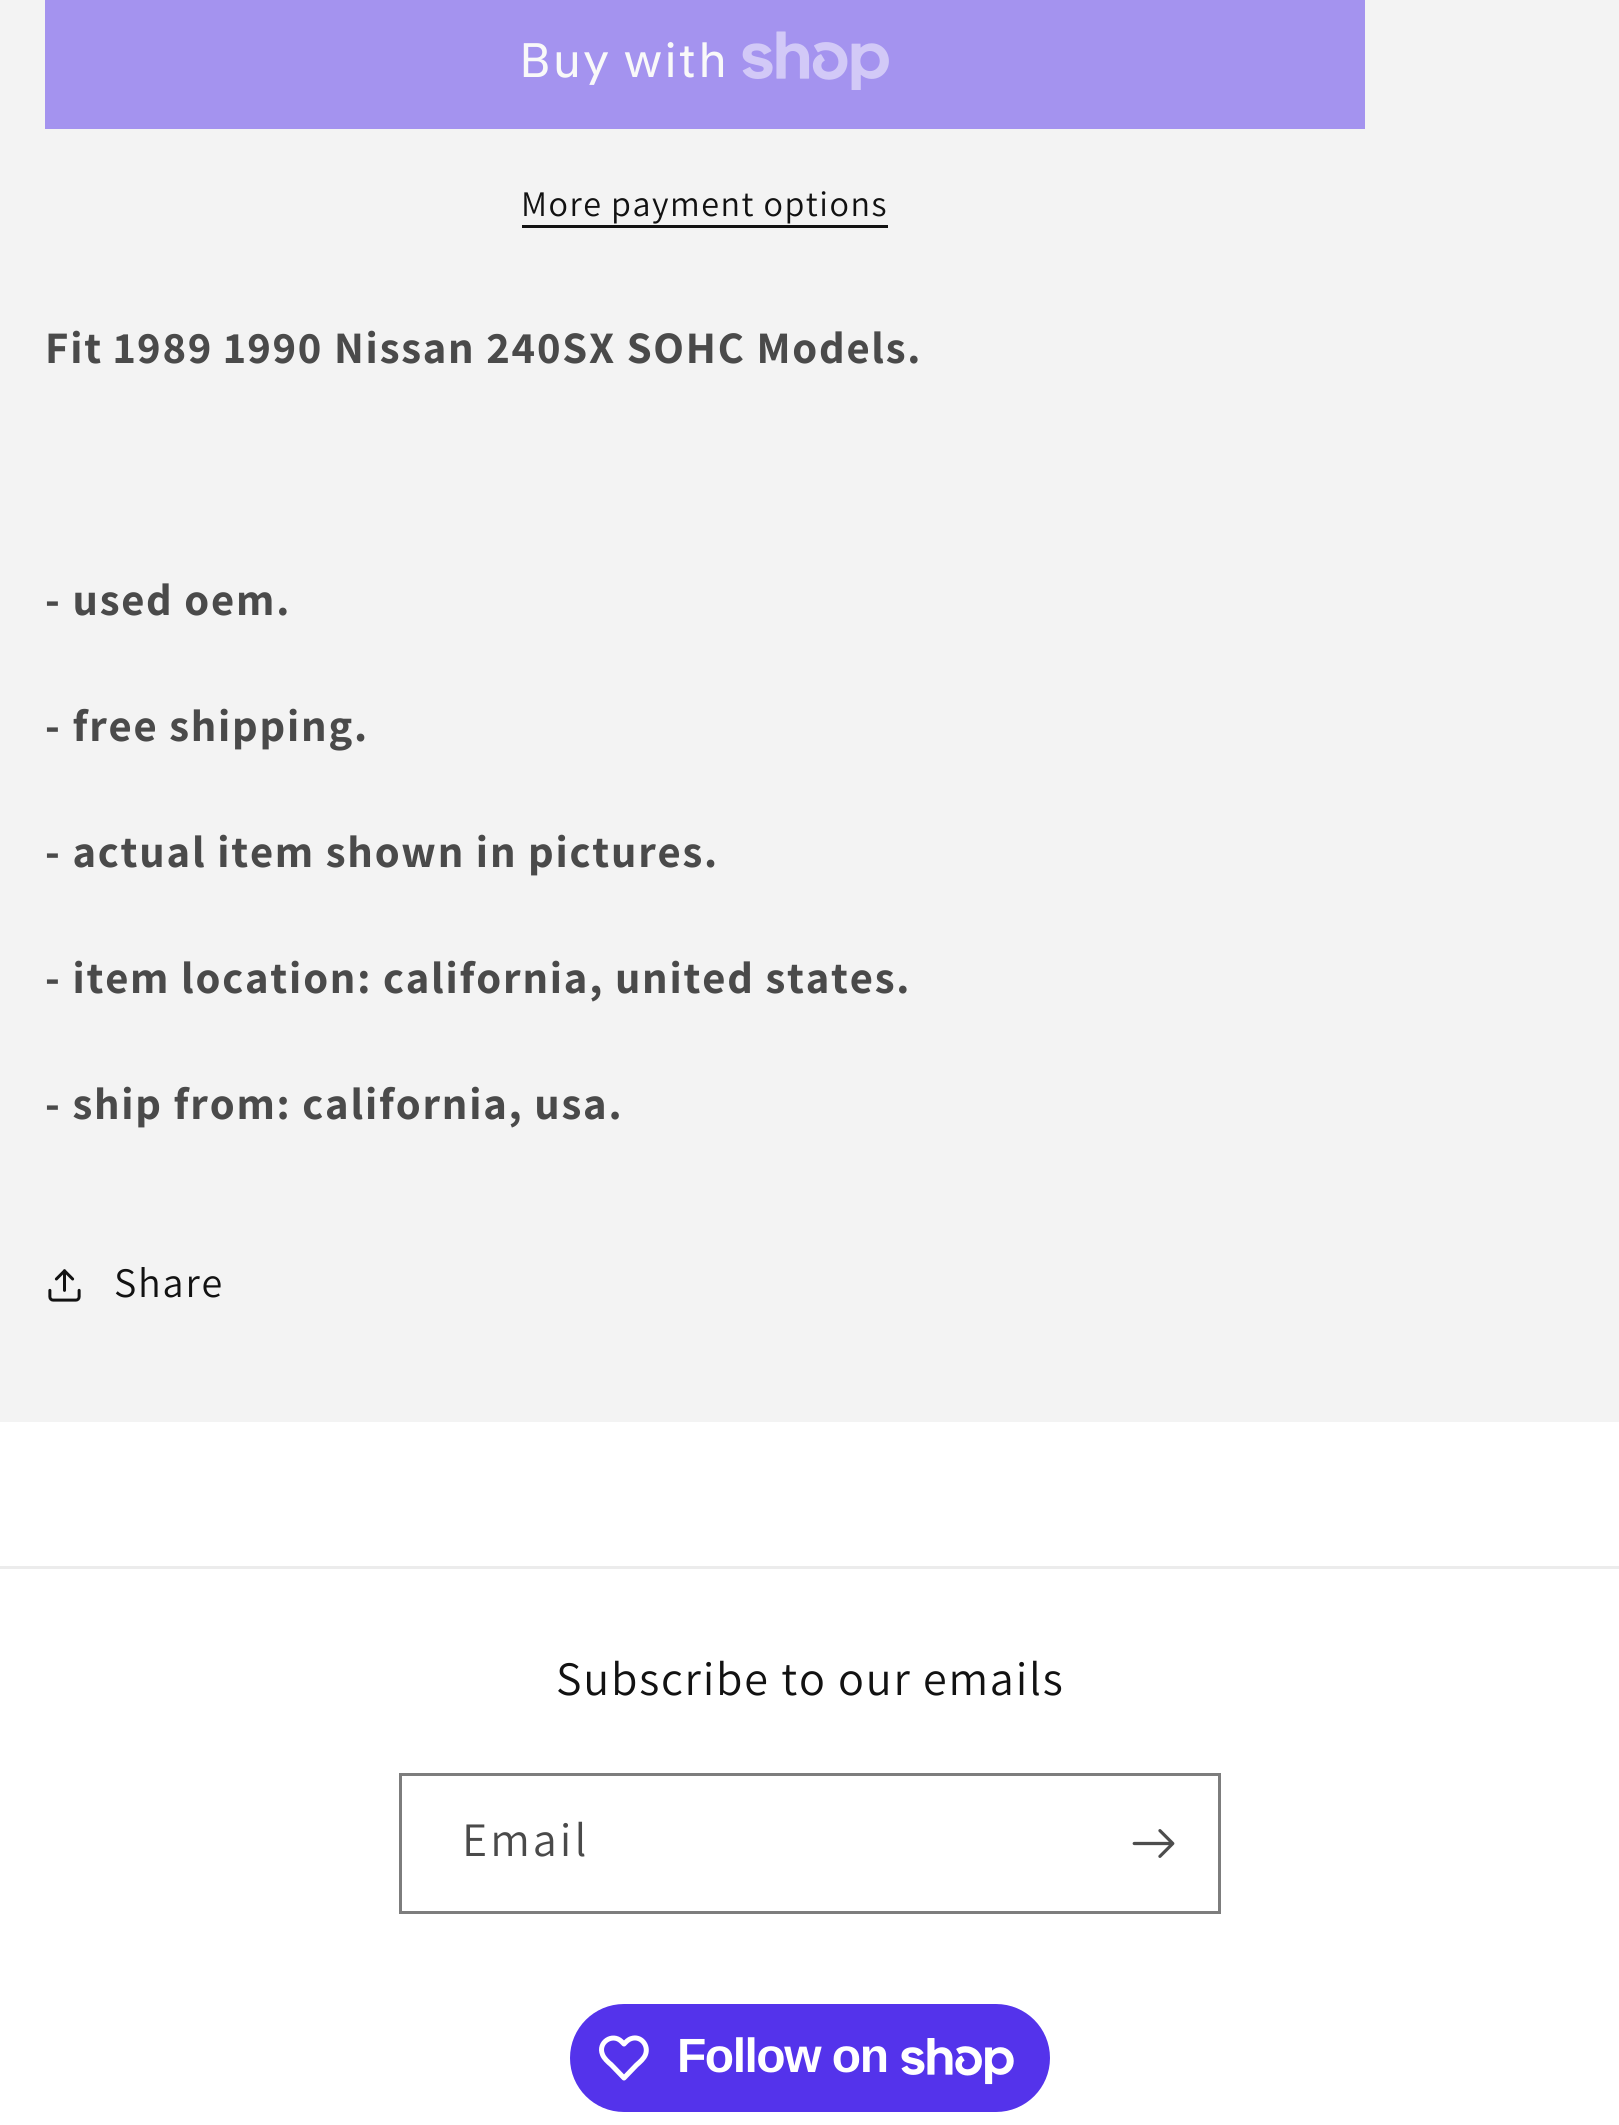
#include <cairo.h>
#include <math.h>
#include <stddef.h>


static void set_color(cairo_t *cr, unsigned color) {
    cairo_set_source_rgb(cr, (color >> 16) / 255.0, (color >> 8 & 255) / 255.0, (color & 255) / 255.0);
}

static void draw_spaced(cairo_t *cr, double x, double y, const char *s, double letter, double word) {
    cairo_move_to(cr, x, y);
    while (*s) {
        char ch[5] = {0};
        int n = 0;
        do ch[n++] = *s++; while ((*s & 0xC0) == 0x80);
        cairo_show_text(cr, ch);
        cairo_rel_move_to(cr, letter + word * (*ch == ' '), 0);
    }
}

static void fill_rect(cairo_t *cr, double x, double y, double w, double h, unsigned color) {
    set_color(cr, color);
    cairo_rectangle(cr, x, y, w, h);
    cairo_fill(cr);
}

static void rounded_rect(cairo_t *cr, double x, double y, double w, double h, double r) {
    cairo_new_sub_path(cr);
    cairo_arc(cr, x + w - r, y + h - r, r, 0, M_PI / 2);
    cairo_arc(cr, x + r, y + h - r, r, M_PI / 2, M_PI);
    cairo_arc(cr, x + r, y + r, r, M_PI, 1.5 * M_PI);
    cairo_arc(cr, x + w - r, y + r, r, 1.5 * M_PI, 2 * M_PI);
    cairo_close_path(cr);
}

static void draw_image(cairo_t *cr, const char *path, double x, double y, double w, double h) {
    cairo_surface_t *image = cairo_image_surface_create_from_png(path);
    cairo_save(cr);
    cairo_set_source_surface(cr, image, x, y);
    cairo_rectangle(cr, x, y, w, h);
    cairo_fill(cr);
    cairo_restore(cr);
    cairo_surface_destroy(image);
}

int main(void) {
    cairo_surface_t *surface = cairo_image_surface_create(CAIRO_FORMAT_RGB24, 1619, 2125);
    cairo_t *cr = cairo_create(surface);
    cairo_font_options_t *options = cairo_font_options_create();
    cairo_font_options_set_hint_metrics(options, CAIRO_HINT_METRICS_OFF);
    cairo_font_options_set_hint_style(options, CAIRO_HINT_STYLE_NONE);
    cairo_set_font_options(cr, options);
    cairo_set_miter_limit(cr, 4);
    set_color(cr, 0xFFFFFF);
    cairo_paint(cr);
    fill_rect(cr, 0, 0, 1619, 1422, 0xF3F3F3);
    fill_rect(cr, 45, 0, 1320, 129, 0xA493EF);
    cairo_select_font_face(cr, "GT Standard", CAIRO_FONT_SLANT_NORMAL, CAIRO_FONT_WEIGHT_NORMAL);
    cairo_set_font_size(cr, 48);
    set_color(cr, 0xF9F9F9);
    draw_spaced(cr, 519, 77, "Buy with", 1.8, 0);
    draw_image(cr, "assets/img1.png", 742, 31, 147, 59);
    cairo_select_font_face(cr, "Assistant", CAIRO_FONT_SLANT_NORMAL, CAIRO_FONT_WEIGHT_NORMAL);
    cairo_set_font_size(cr, 36);
    set_color(cr, 0x121212);
    draw_spaced(cr, 521, 216, "More payment options", 1.5, 0);
    fill_rect(cr, 522, 225, 366, 3, 0x121212);
    cairo_select_font_face(cr, "Assistant", CAIRO_FONT_SLANT_NORMAL, CAIRO_FONT_WEIGHT_BOLD);
    cairo_set_font_size(cr, 45);
    set_color(cr, 0x4A4A4A);
    draw_spaced(cr, 45, 363, "Fit 1989 1990 Nissan 240SX SOHC Models.", 1.8, 0);
    draw_spaced(cr, 45, 615, "- used oem.", 1.8, 0);
    draw_spaced(cr, 45, 741, "- free shipping.", 1.8, 0);
    draw_spaced(cr, 45, 867, "- actual item shown in pictures.", 1.8, 0);
    draw_spaced(cr, 45, 993, "- item location: california, united states.", 1.8, 0);
    draw_spaced(cr, 45, 1119, "- ship from: california, usa.", 1.8, 0);
    draw_image(cr, "assets/img2.png", 48, 1269, 33, 33);
    cairo_select_font_face(cr, "Assistant", CAIRO_FONT_SLANT_NORMAL, CAIRO_FONT_WEIGHT_NORMAL);
    cairo_set_font_size(cr, 42);
    set_color(cr, 0x121212);
    draw_spaced(cr, 114, 1297, "Share", 1.8, 0);
    fill_rect(cr, 0, 1566, 1619, 3, 0xECECEC);
    cairo_set_font_size(cr, 48);
    set_color(cr, 0x121212);
    draw_spaced(cr, 556, 1695, "Subscribe to our emails", 1.8, 0);
    cairo_rectangle(cr, 400.5, 1774.5, 819, 138);
    set_color(cr, 0x7D7D7D);
    cairo_set_line_width(cr, 3);
    cairo_stroke(cr);
    set_color(cr, 0x4A4A4A);
    draw_spaced(cr, 462, 1856, "Email", 3, 0);
    draw_image(cr, "assets/img3.png", 1132, 1829, 43, 29);
    set_color(cr, 0x5433EB);
    rounded_rect(cr, 570, 2004, 480, 108, 54);
    cairo_fill(cr);
    cairo_new_path(cr);
    cairo_move_to(cr, 621.5, 2041.5);
    cairo_line_to(cr, 624, 2044);
    cairo_curve_to(cr, 626, 2042, 628, 2039.5, 631.5, 2038.5);
    cairo_curve_to(cr, 640.5, 2035.5, 649, 2045, 645.5, 2054.5);
    cairo_curve_to(cr, 644, 2058.5, 640, 2062, 636.5, 2065);
    cairo_line_to(cr, 624, 2078);
    cairo_line_to(cr, 611.5, 2065);
    cairo_curve_to(cr, 608, 2062, 604, 2058.5, 602.5, 2054.5);
    cairo_curve_to(cr, 597.5, 2042.5, 612.5, 2032.5, 621.5, 2041.5);
    cairo_close_path(cr);
    set_color(cr, 0xFFFFFF);
    cairo_set_line_width(cr, 5);
    cairo_set_line_join(cr, CAIRO_LINE_JOIN_ROUND);
    cairo_stroke(cr);
    cairo_select_font_face(cr, "Liberation Sans", CAIRO_FONT_SLANT_NORMAL, CAIRO_FONT_WEIGHT_BOLD);
    draw_spaced(cr, 677, 2072, "Follow on", -1.5, 0);
    draw_image(cr, "assets/img4.png", 901, 2038, 113, 47);
    cairo_surface_write_to_png(surface, "output.png");
    cairo_font_options_destroy(options);
    cairo_destroy(cr);
    cairo_surface_destroy(surface);
    return 0;
}
